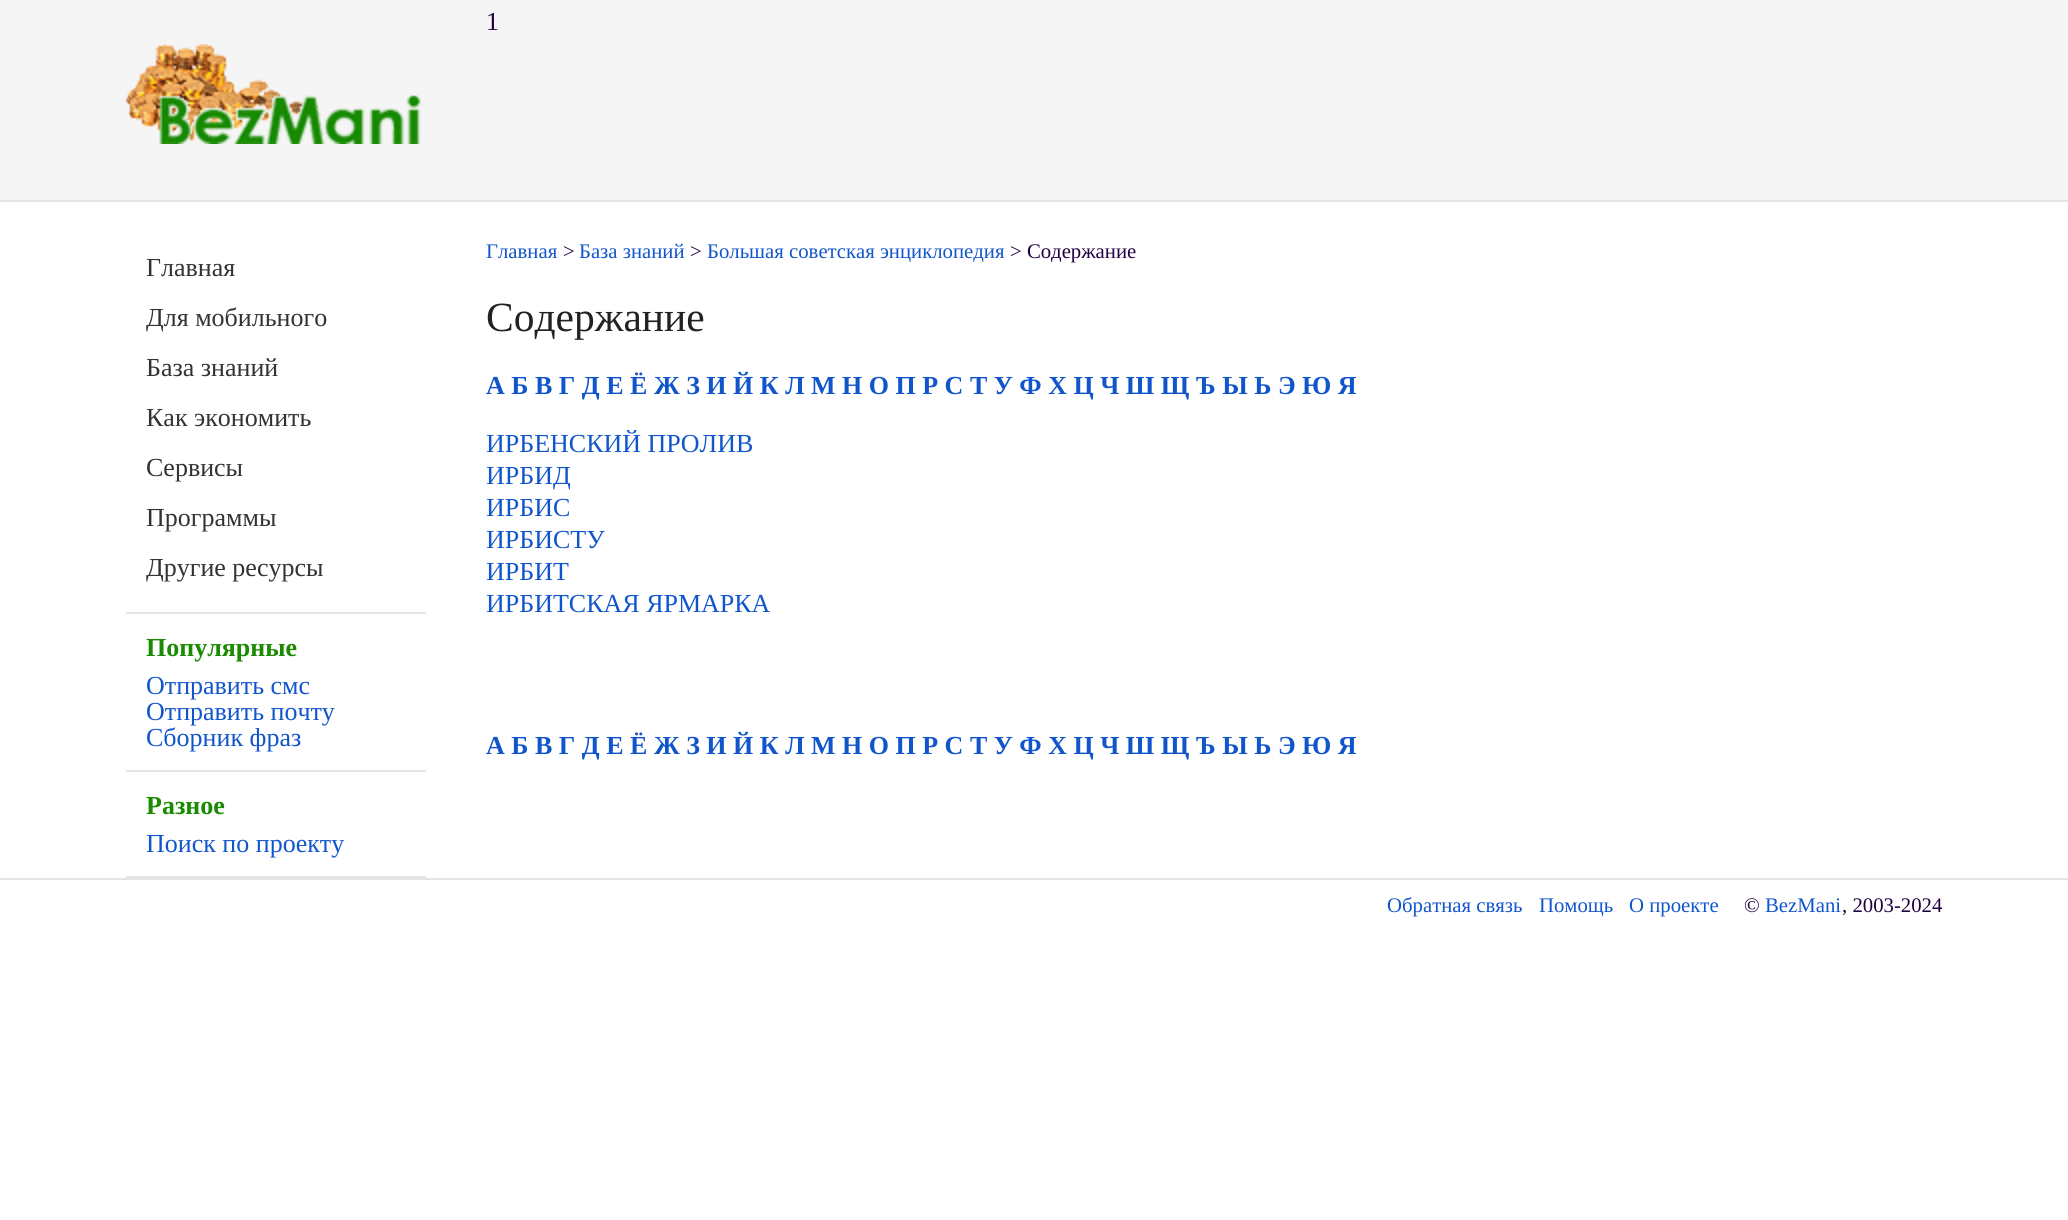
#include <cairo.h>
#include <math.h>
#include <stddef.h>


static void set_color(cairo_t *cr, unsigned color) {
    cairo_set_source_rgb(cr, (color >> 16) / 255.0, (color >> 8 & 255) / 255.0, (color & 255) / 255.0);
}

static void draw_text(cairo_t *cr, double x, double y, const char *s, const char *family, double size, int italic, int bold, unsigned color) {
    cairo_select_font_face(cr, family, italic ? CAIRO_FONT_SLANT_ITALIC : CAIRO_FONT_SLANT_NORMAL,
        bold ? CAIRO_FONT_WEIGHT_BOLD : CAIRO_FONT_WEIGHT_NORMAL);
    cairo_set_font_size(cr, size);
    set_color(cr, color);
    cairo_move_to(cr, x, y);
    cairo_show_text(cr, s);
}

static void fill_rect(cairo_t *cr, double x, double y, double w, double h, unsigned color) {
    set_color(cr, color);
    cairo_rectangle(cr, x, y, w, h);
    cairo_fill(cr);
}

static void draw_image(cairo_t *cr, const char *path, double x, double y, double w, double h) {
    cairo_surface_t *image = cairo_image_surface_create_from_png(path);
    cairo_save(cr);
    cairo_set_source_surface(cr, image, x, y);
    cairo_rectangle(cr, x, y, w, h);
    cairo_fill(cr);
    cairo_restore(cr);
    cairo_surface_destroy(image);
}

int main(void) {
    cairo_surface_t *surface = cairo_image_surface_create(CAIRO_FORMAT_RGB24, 2068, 1220);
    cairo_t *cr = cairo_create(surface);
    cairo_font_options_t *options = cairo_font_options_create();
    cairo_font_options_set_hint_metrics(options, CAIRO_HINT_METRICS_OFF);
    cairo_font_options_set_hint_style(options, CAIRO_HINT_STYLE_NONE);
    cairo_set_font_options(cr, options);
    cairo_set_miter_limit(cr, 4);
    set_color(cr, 0xFFFFFF);
    cairo_paint(cr);
    fill_rect(cr, 0, 0, 2068, 200, 0xF5F5F5);
    fill_rect(cr, 0, 200, 2068, 2, 0xE5E5E5);
    draw_text(cr, 486, 30, "1", "Liberation Serif", 26, 0, 0, 0x200040);
    draw_image(cr, "assets/img1.png", 126, 44, 295, 100);
    fill_rect(cr, 126, 612, 300, 2, 0xE5E5E5);
    draw_text(cr, 146, 276, "Главная", "Liberation Serif", 26, 0, 0, 0x333333);
    draw_text(cr, 146, 326, "Для мобильного", "Liberation Serif", 26, 0, 0, 0x333333);
    draw_text(cr, 146, 376, "База знаний", "Liberation Serif", 26, 0, 0, 0x333333);
    draw_text(cr, 146, 426, "Как экономить", "Liberation Serif", 26, 0, 0, 0x333333);
    draw_text(cr, 146, 476, "Сервисы", "Liberation Serif", 26, 0, 0, 0x333333);
    draw_text(cr, 146, 526, "Программы", "Liberation Serif", 26, 0, 0, 0x333333);
    draw_text(cr, 146, 576, "Другие ресурсы", "Liberation Serif", 26, 0, 0, 0x333333);
    fill_rect(cr, 126, 770, 300, 2, 0xE5E5E5);
    draw_text(cr, 146, 656, "Популярные", "Liberation Serif", 26, 0, 1, 0x1A8B01);
    draw_text(cr, 146, 694, "Отправить смс", "Liberation Serif", 26, 0, 0, 0x1155CC);
    draw_text(cr, 146, 720, "Отправить почту", "Liberation Serif", 26, 0, 0, 0x1155CC);
    draw_text(cr, 146, 746, "Сборник фраз", "Liberation Serif", 26, 0, 0, 0x1155CC);
    fill_rect(cr, 126, 876, 300, 2, 0xE5E5E5);
    draw_text(cr, 146, 814, "Разное", "Liberation Serif", 26, 0, 1, 0x1A8B01);
    draw_text(cr, 146, 852, "Поиск по проекту", "Liberation Serif", 26, 0, 0, 0x1155CC);
    draw_text(cr, 486, 258, "Главная", "Liberation Serif", 20.75, 0, 0, 0x1155CC);
    draw_text(cr, 563, 258, ">", "Liberation Serif", 20.75, 0, 0, 0x200040);
    draw_text(cr, 579, 258, "База знаний", "Liberation Serif", 20.75, 0, 0, 0x1155CC);
    draw_text(cr, 690, 258, ">", "Liberation Serif", 20.75, 0, 0, 0x200040);
    draw_text(cr, 707, 258, "Большая советская энциклопедия", "Liberation Serif", 20.75, 0, 0, 0x1155CC);
    draw_text(cr, 1010, 258, "> Содержание", "Liberation Serif", 20.75, 0, 0, 0x200040);
    draw_text(cr, 486, 331, "Содержание", "Liberation Serif", 41.5, 0, 0, 0x222222);
    draw_text(cr, 486, 394, "А Б В Г Д Е Ё Ж З И Й К Л М Н О П Р С Т У Ф Х Ц Ч Ш Щ Ъ Ы Ь Э Ю Я", "Liberation Serif", 26, 0, 1, 0x1155CC);
    draw_text(cr, 486, 452, "ИРБЕНСКИЙ ПРОЛИВ", "Liberation Serif", 26, 0, 0, 0x1155CC);
    draw_text(cr, 486, 484, "ИРБИД", "Liberation Serif", 26, 0, 0, 0x1155CC);
    draw_text(cr, 486, 516, "ИРБИС", "Liberation Serif", 26, 0, 0, 0x1155CC);
    draw_text(cr, 486, 548, "ИРБИСТУ", "Liberation Serif", 26, 0, 0, 0x1155CC);
    draw_text(cr, 486, 580, "ИРБИТ", "Liberation Serif", 26, 0, 0, 0x1155CC);
    draw_text(cr, 486, 612, "ИРБИТСКАЯ ЯРМАРКА", "Liberation Serif", 26, 0, 0, 0x1155CC);
    draw_text(cr, 486, 754, "А Б В Г Д Е Ё Ж З И Й К Л М Н О П Р С Т У Ф Х Ц Ч Ш Щ Ъ Ы Ь Э Ю Я", "Liberation Serif", 26, 0, 1, 0x1155CC);
    fill_rect(cr, 0, 878, 2068, 2, 0xE5E5E5);
    draw_text(cr, 1387, 912, "Обратная связь", "Liberation Serif", 20.75, 0, 0, 0x1155CC);
    draw_text(cr, 1539, 912, "Помощь", "Liberation Serif", 20.75, 0, 0, 0x1155CC);
    draw_text(cr, 1629, 912, "О проекте", "Liberation Serif", 20.75, 0, 0, 0x1155CC);
    draw_text(cr, 1744, 912, "©", "Liberation Serif", 20.75, 0, 0, 0x200040);
    draw_text(cr, 1765, 912, "BezMani", "Liberation Serif", 20.75, 0, 0, 0x1155CC);
    draw_text(cr, 1842, 912, ", 2003-2024", "Liberation Serif", 20.75, 0, 0, 0x200040);
    cairo_surface_write_to_png(surface, "output.png");
    cairo_font_options_destroy(options);
    cairo_destroy(cr);
    cairo_surface_destroy(surface);
    return 0;
}
